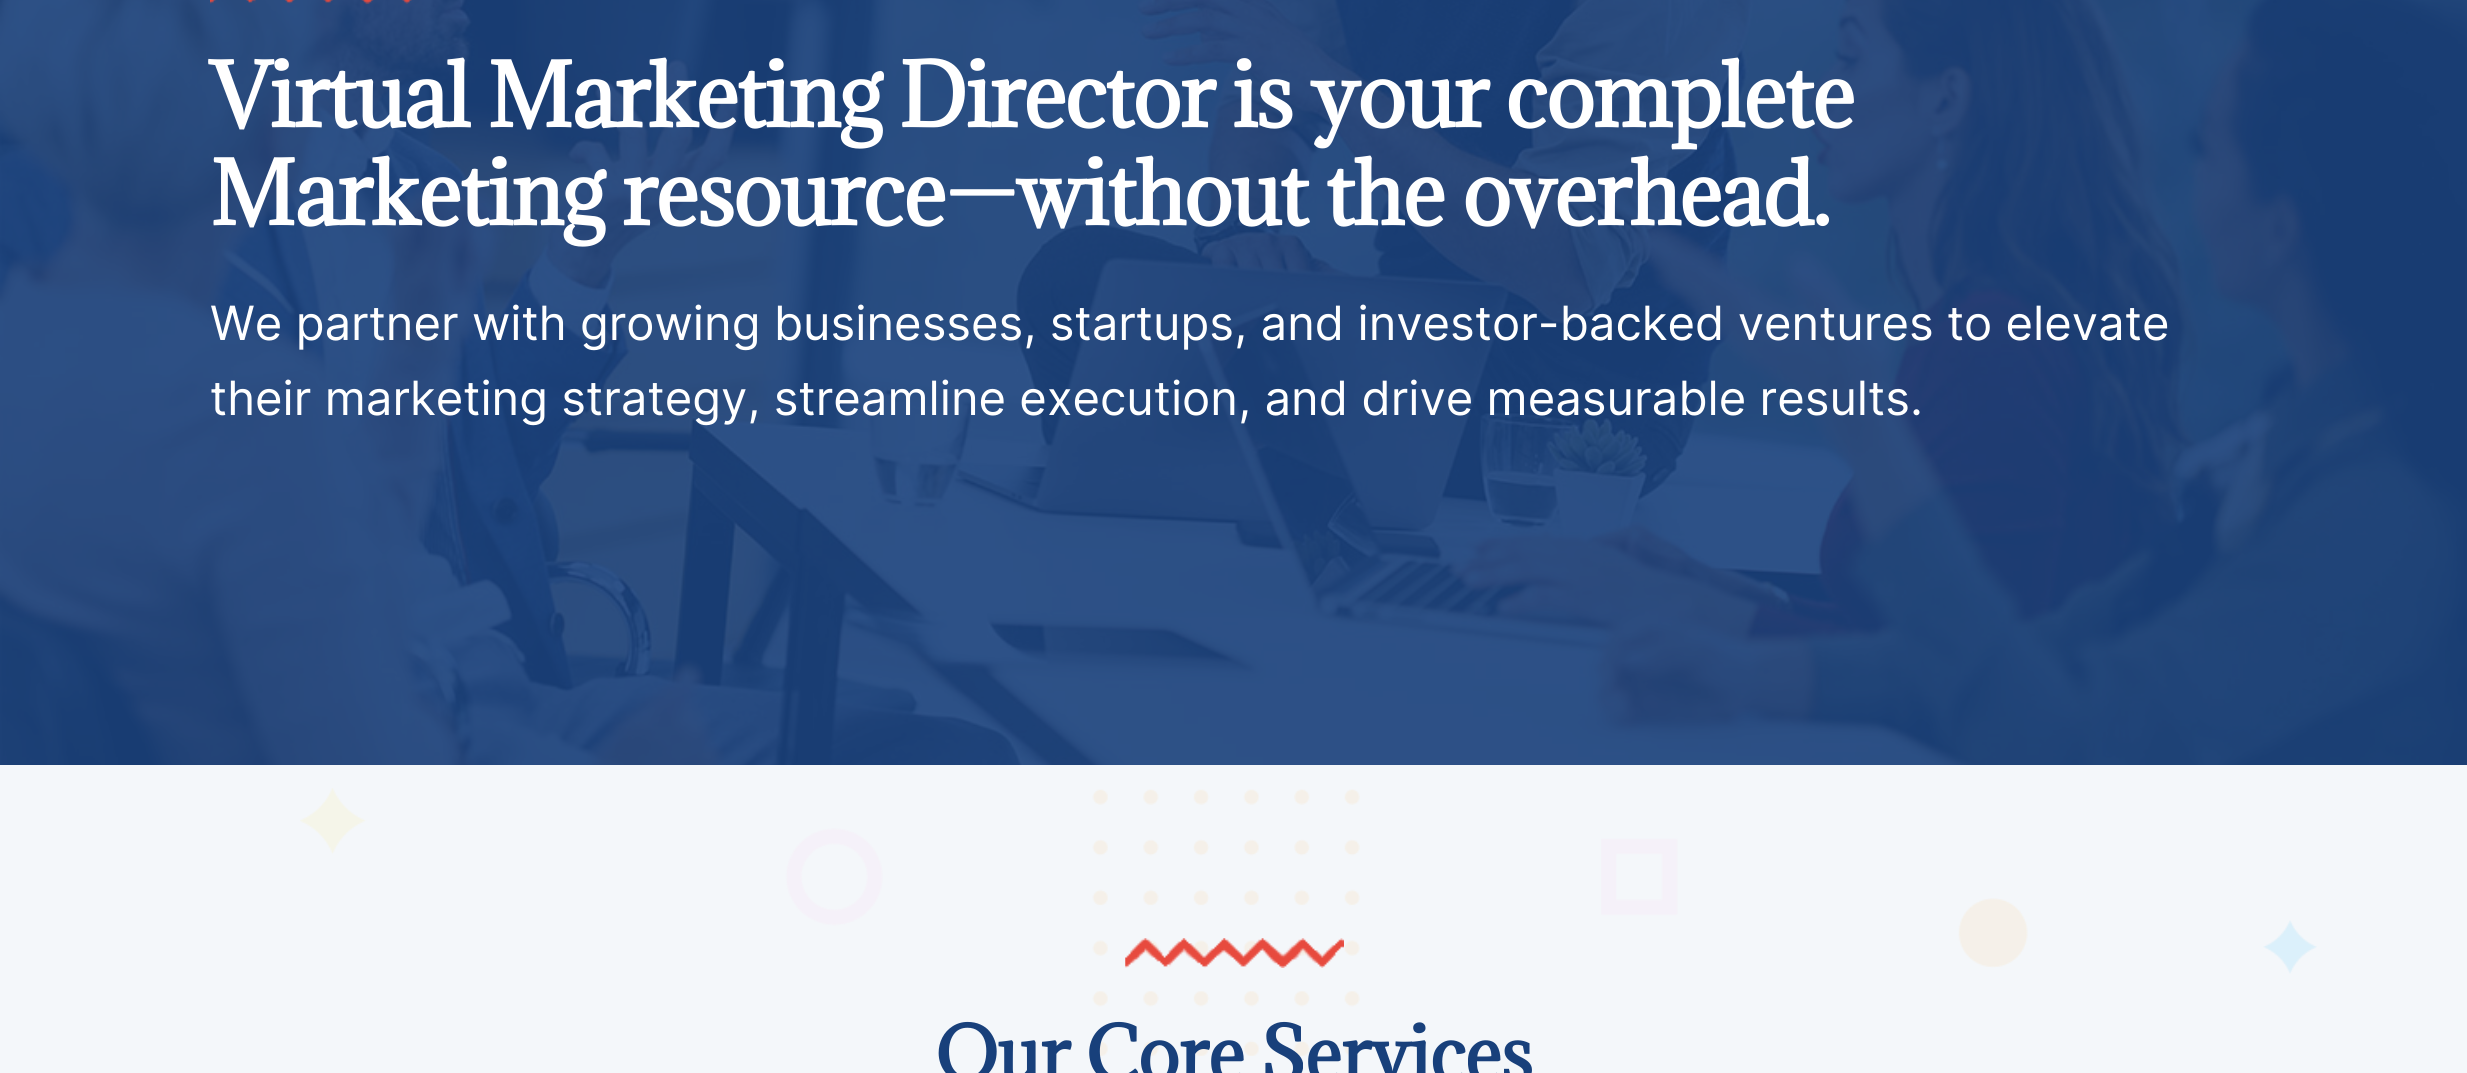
#include <cairo.h>
#include <math.h>
#include <stddef.h>


static void set_color(cairo_t *cr, unsigned color) {
    cairo_set_source_rgb(cr, (color >> 16) / 255.0, (color >> 8 & 255) / 255.0, (color & 255) / 255.0);
}

static void draw_text(cairo_t *cr, double x, double y, const char *s, const char *family, double size, int italic, int bold, unsigned color) {
    cairo_select_font_face(cr, family, italic ? CAIRO_FONT_SLANT_ITALIC : CAIRO_FONT_SLANT_NORMAL,
        bold ? CAIRO_FONT_WEIGHT_BOLD : CAIRO_FONT_WEIGHT_NORMAL);
    cairo_set_font_size(cr, size);
    set_color(cr, color);
    cairo_move_to(cr, x, y);
    cairo_show_text(cr, s);
}

static void draw_spaced(cairo_t *cr, double x, double y, const char *s, double letter, double word) {
    cairo_move_to(cr, x, y);
    while (*s) {
        char ch[5] = {0};
        int n = 0;
        do ch[n++] = *s++; while ((*s & 0xC0) == 0x80);
        cairo_show_text(cr, ch);
        cairo_rel_move_to(cr, letter + word * (*ch == ' '), 0);
    }
}

static void fill_rect(cairo_t *cr, double x, double y, double w, double h, unsigned color) {
    set_color(cr, color);
    cairo_rectangle(cr, x, y, w, h);
    cairo_fill(cr);
}

static void draw_image(cairo_t *cr, const char *path, double x, double y, double w, double h) {
    cairo_surface_t *image = cairo_image_surface_create_from_png(path);
    cairo_save(cr);
    cairo_set_source_surface(cr, image, x, y);
    cairo_rectangle(cr, x, y, w, h);
    cairo_fill(cr);
    cairo_restore(cr);
    cairo_surface_destroy(image);
}

int main(void) {
    cairo_surface_t *surface = cairo_image_surface_create(CAIRO_FORMAT_RGB24, 2467, 1073);
    cairo_t *cr = cairo_create(surface);
    cairo_font_options_t *options = cairo_font_options_create();
    cairo_font_options_set_hint_metrics(options, CAIRO_HINT_METRICS_OFF);
    cairo_font_options_set_hint_style(options, CAIRO_HINT_STYLE_NONE);
    cairo_set_font_options(cr, options);
    cairo_set_miter_limit(cr, 4);
    set_color(cr, 0xFFFFFF);
    cairo_paint(cr);
    draw_image(cr, "assets/img1.png", 0, 0, 2467, 765);
    draw_image(cr, "assets/img2.png", 210, 0, 202, 4);
    cairo_select_font_face(cr, "Adamina", CAIRO_FONT_SLANT_NORMAL, CAIRO_FONT_WEIGHT_BOLD);
    cairo_set_font_size(cr, 82.25);
    set_color(cr, 0xFFFFFF);
    draw_spaced(cr, 210, 127, "Virtual Marketing Director is your complete", -1.75, 0);
    draw_spaced(cr, 210, 225, "Marketing resource—without the overhead.", -1.75, 0);
    draw_text(cr, 210, 340, "We partner with growing businesses, startups, and investor-backed ventures to elevate", "Inter", 47.25, 0, 0, 0xFFFFFF);
    draw_text(cr, 210, 415, "their marketing strategy, streamline execution, and drive measurable results.", "Inter", 47.25, 0, 0, 0xFFFFFF);
    fill_rect(cr, 0, 765, 2467, 308, 0xF4F7FA);
    draw_image(cr, "assets/img3.png", 300, 788, 2017, 268);
    draw_image(cr, "assets/img4.png", 1125, 938, 219, 30);
    cairo_select_font_face(cr, "Adamina", CAIRO_FONT_SLANT_NORMAL, CAIRO_FONT_WEIGHT_BOLD);
    cairo_set_font_size(cr, 70);
    set_color(cr, 0x18407B);
    draw_spaced(cr, 935, 1081, "Our Core Services", -0.9, 0);
    cairo_surface_write_to_png(surface, "output.png");
    cairo_font_options_destroy(options);
    cairo_destroy(cr);
    cairo_surface_destroy(surface);
    return 0;
}
